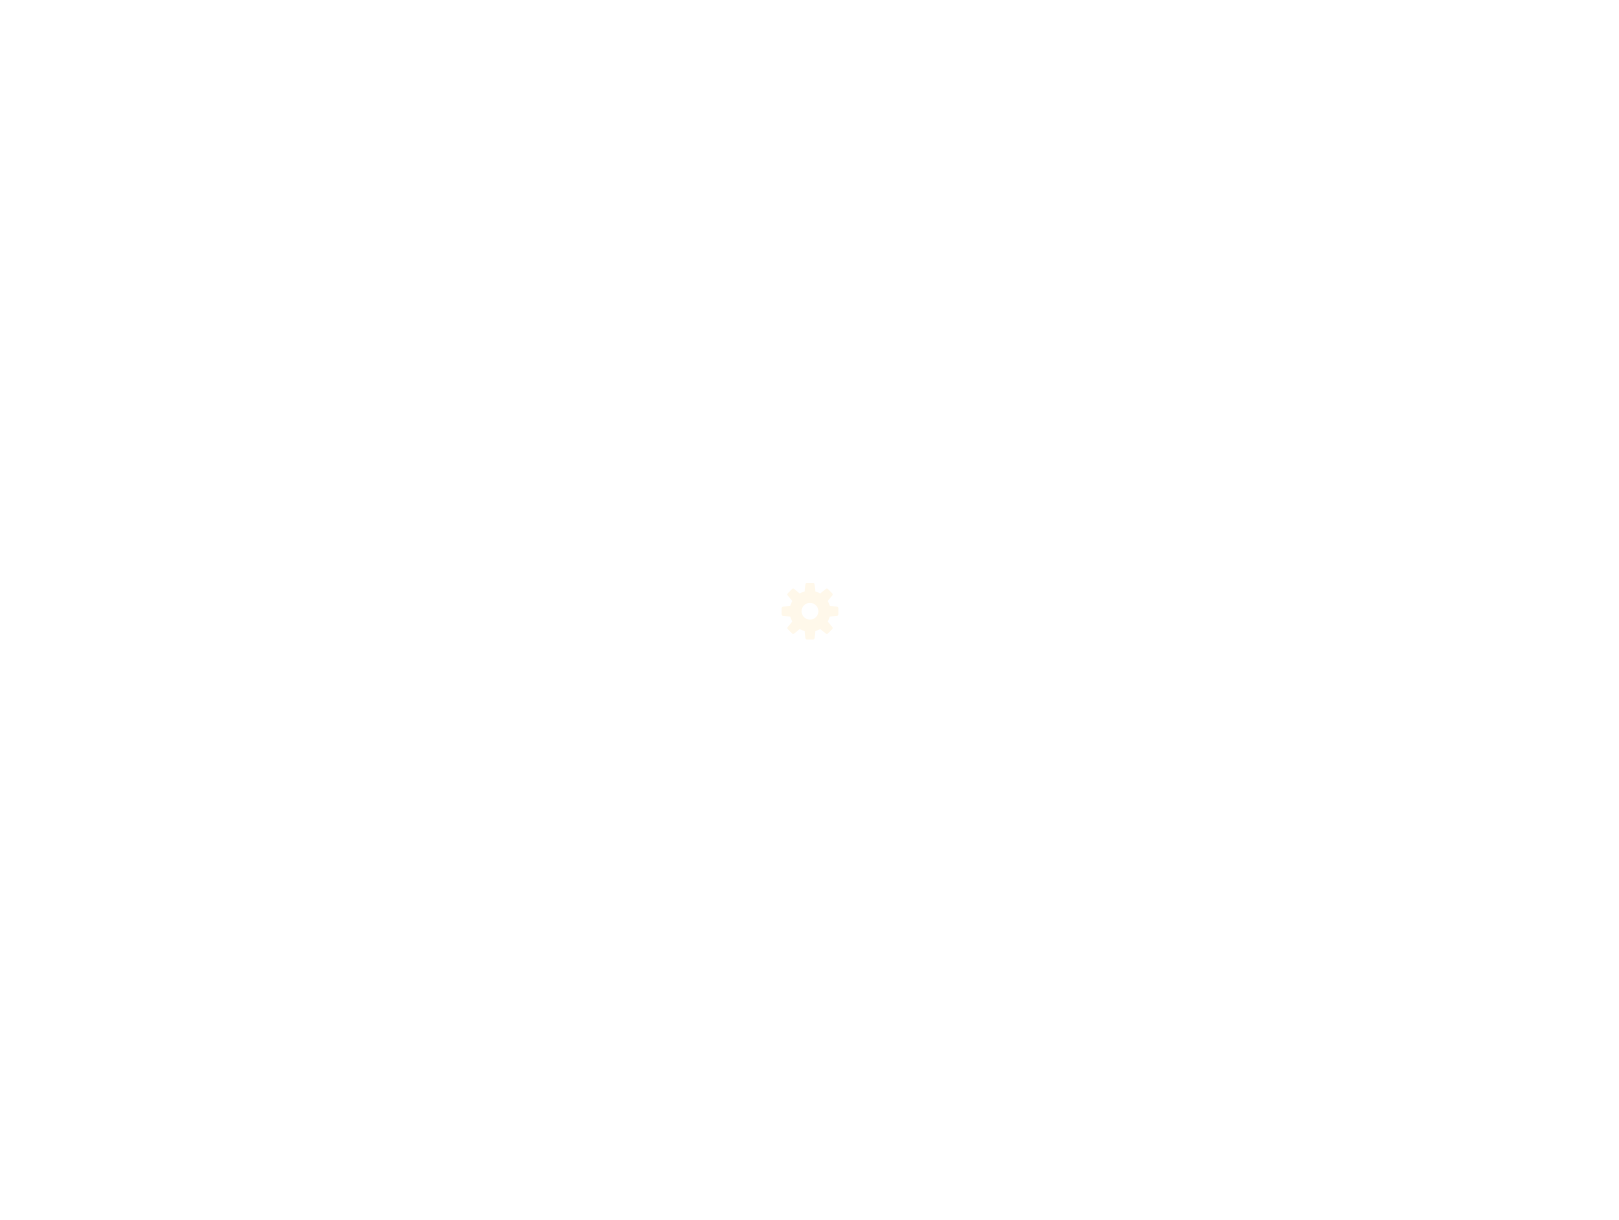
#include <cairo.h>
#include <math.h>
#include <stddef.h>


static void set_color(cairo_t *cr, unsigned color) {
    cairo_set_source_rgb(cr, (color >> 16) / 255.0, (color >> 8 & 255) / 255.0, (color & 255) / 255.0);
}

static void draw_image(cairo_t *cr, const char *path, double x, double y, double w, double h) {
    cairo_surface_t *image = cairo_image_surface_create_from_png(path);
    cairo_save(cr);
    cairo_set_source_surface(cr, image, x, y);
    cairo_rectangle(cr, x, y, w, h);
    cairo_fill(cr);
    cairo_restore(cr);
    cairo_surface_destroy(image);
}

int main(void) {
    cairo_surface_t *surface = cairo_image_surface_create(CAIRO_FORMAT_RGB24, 1619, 1220);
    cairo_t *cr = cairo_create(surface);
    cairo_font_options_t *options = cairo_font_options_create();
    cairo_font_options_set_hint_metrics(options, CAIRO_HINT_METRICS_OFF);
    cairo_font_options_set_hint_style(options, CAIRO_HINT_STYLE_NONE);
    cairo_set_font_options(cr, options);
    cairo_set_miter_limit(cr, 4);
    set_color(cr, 0xFFFFFF);
    cairo_paint(cr);
    draw_image(cr, "assets/img1.png", 781, 583, 58, 57);
    cairo_surface_write_to_png(surface, "output.png");
    cairo_font_options_destroy(options);
    cairo_destroy(cr);
    cairo_surface_destroy(surface);
    return 0;
}
